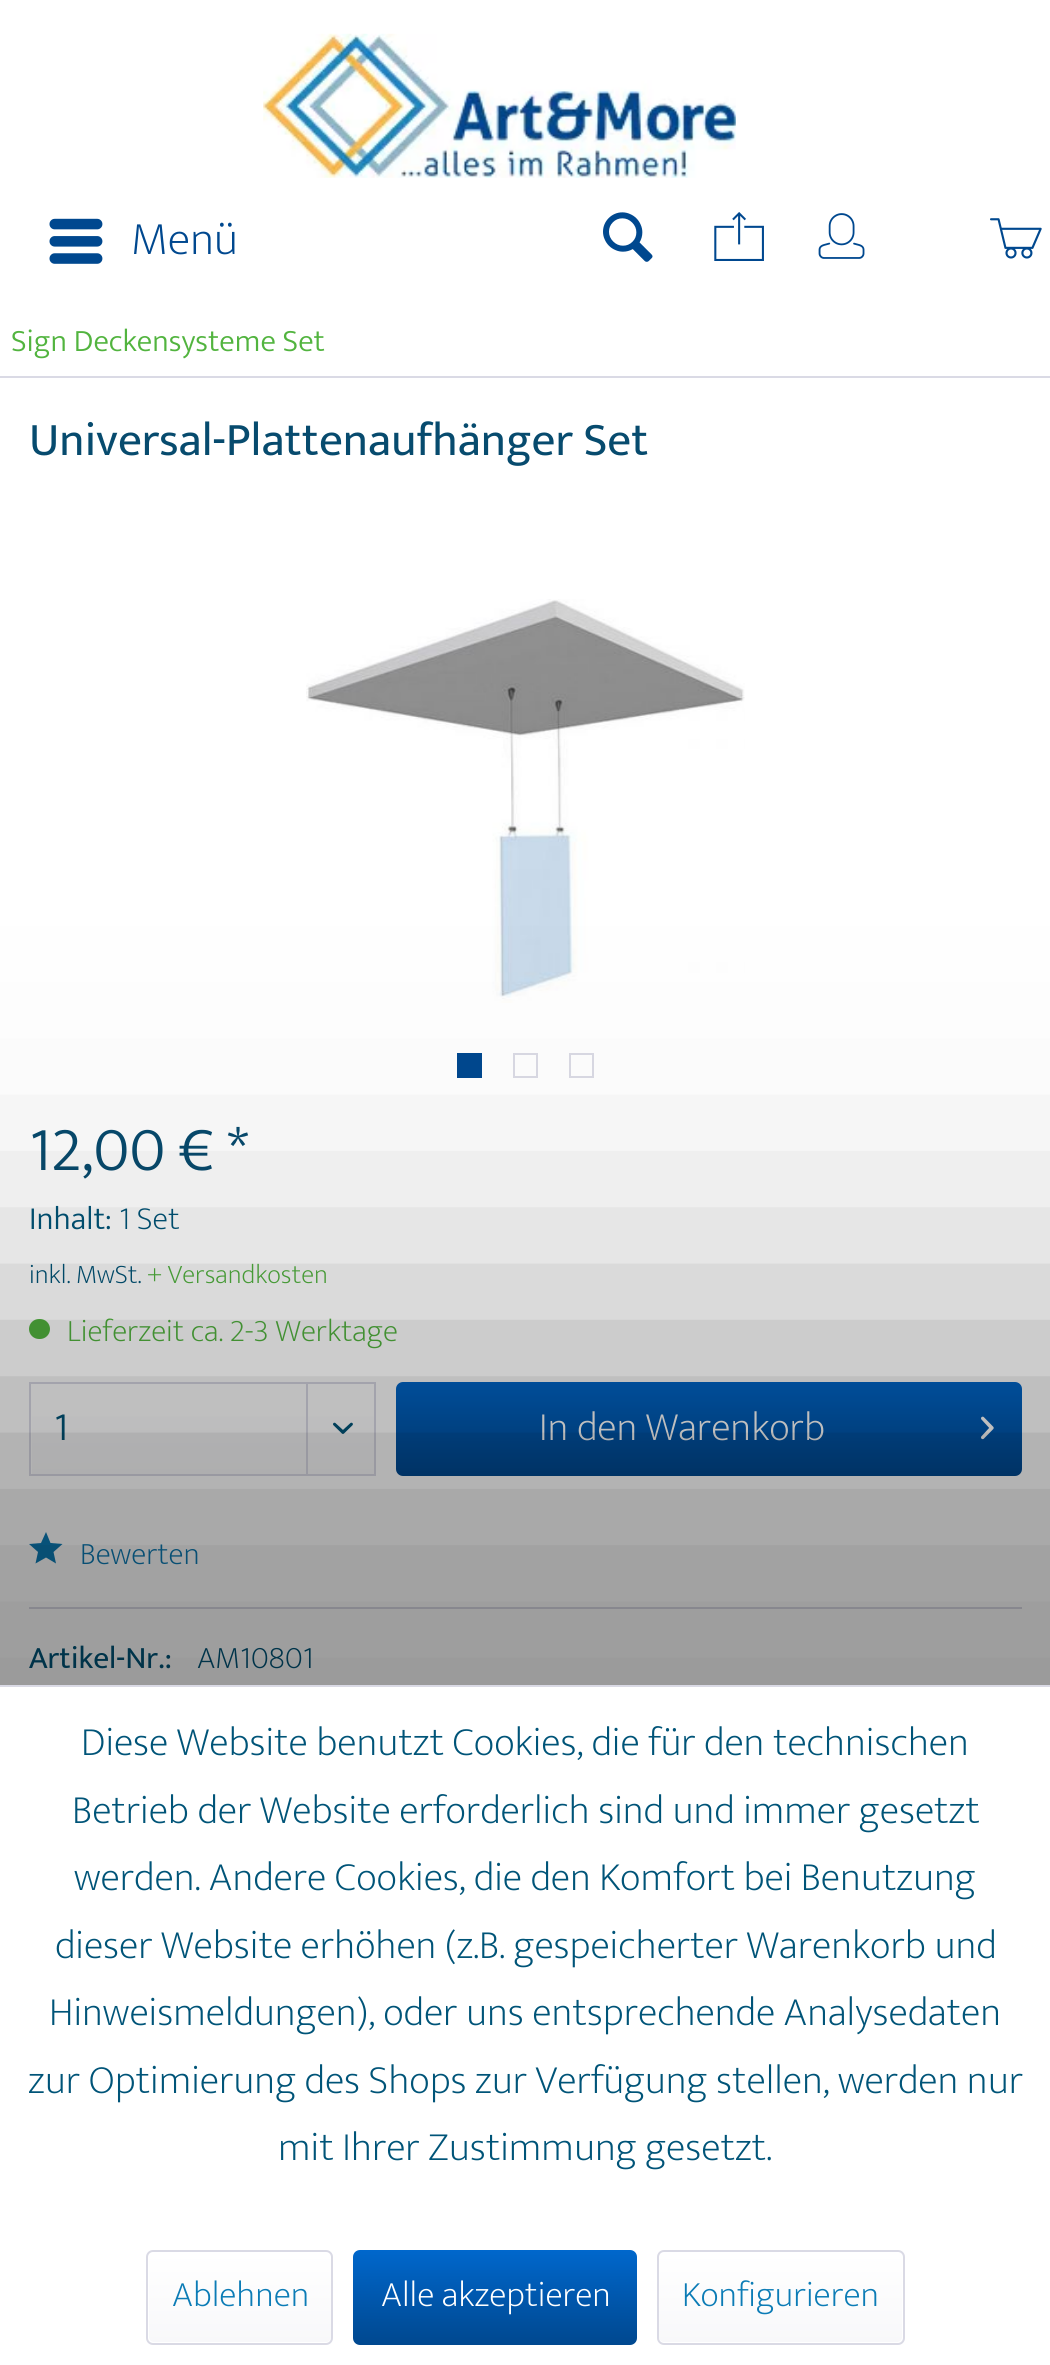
#include <cairo.h>
#include <math.h>
#include <stddef.h>


static void set_color(cairo_t *cr, unsigned color) {
    cairo_set_source_rgb(cr, (color >> 16) / 255.0, (color >> 8 & 255) / 255.0, (color & 255) / 255.0);
}

static void draw_text(cairo_t *cr, double x, double y, const char *s, const char *family, double size, int italic, int bold, unsigned color) {
    cairo_select_font_face(cr, family, italic ? CAIRO_FONT_SLANT_ITALIC : CAIRO_FONT_SLANT_NORMAL,
        bold ? CAIRO_FONT_WEIGHT_BOLD : CAIRO_FONT_WEIGHT_NORMAL);
    cairo_set_font_size(cr, size);
    set_color(cr, color);
    cairo_move_to(cr, x, y);
    cairo_show_text(cr, s);
}

static void fill_rect(cairo_t *cr, double x, double y, double w, double h, unsigned color) {
    set_color(cr, color);
    cairo_rectangle(cr, x, y, w, h);
    cairo_fill(cr);
}

static void rounded_rect(cairo_t *cr, double x, double y, double w, double h, double r) {
    cairo_new_sub_path(cr);
    cairo_arc(cr, x + w - r, y + h - r, r, 0, M_PI / 2);
    cairo_arc(cr, x + r, y + h - r, r, M_PI / 2, M_PI);
    cairo_arc(cr, x + r, y + r, r, M_PI, 1.5 * M_PI);
    cairo_arc(cr, x + w - r, y + r, r, 1.5 * M_PI, 2 * M_PI);
    cairo_close_path(cr);
}

static void draw_shadow(cairo_t *cr, double x, double y, double w, double h, double r, double blur, double alpha) {
    cairo_push_group_with_content(cr, CAIRO_CONTENT_ALPHA);
    cairo_set_operator(cr, CAIRO_OPERATOR_SOURCE);
    for (int i = 15; i >= -15 && fmin(w, h) + blur * i / 3 > 0; i -= 2) {
        double e = blur * i / 6;
        cairo_set_source_rgba(cr, 0, 0, 0, alpha * erfc((i - 1) / 8.5) / 2);
        rounded_rect(cr, x - e, y - e, w + 2 * e, h + 2 * e, fmax(0, fmin(r + e + blur * .6, fmin(w, h) / 2 + e)));
        cairo_fill(cr);
    }
    cairo_pattern_t *soft = cairo_pop_group(cr);
    cairo_mask(cr, soft);
    cairo_pattern_destroy(soft);
}

static void draw_image(cairo_t *cr, const char *path, double x, double y, double w, double h) {
    cairo_surface_t *image = cairo_image_surface_create_from_png(path);
    cairo_save(cr);
    cairo_set_source_surface(cr, image, x, y);
    cairo_rectangle(cr, x, y, w, h);
    cairo_fill(cr);
    cairo_restore(cr);
    cairo_surface_destroy(image);
}

int main(void) {
    cairo_surface_t *surface = cairo_image_surface_create(CAIRO_FORMAT_RGB24, 1050, 2365);
    cairo_t *cr = cairo_create(surface);
    cairo_font_options_t *options = cairo_font_options_create();
    cairo_font_options_set_hint_metrics(options, CAIRO_HINT_METRICS_OFF);
    cairo_font_options_set_hint_style(options, CAIRO_HINT_STYLE_NONE);
    cairo_set_font_options(cr, options);
    cairo_set_miter_limit(cr, 4);
    cairo_pattern_t *gradient;
    set_color(cr, 0xFFFFFF);
    cairo_paint(cr);
    draw_image(cr, "assets/img1.png", 263, 33, 473, 145);
    draw_image(cr, "assets/img2.png", 49, 218, 54, 46);
    draw_text(cr, 131, 254, "Menü", "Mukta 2 Light", 47, 0, 0, 0x00488F);
    draw_image(cr, "assets/img3.png", 603, 212, 50, 50);
    draw_image(cr, "assets/img4.png", 714, 212, 50, 49);
    draw_image(cr, "assets/img5.png", 818, 213, 47, 46);
    draw_image(cr, "assets/img6.png", 990, 218, 52, 41);
    fill_rect(cr, 0, 376, 1050, 2, 0xDADAE5);
    draw_text(cr, 11, 351, "Sign Deckensysteme Set", "Mukta Light", 31.5, 0, 0, 0x52B43F);
    draw_text(cr, 29, 455, "Universal-Plattenaufhänger Set", "Mukta", 47.25, 0, 0, 0x074B6E);
    draw_image(cr, "assets/img7.png", 306, 599, 439, 404);
    fill_rect(cr, 457, 1053, 25, 25, 0x00488F);
    cairo_rectangle(cr, 514, 1054, 23, 23);
    set_color(cr, 0xDADAE5);
    cairo_stroke(cr);
    cairo_rectangle(cr, 570, 1054, 23, 23);
    cairo_stroke(cr);
    draw_text(cr, 29, 1170, "12,00 € *", "Mukta Light", 63, 0, 0, 0x074B6E);
    draw_text(cr, 29, 1229, "Inhalt:", "Mukta Light", 32.5, 0, 0, 0x005478);
    draw_text(cr, 119, 1229, "1 Set", "Mukta 2 Light", 32.5, 0, 0, 0x005478);
    draw_text(cr, 29, 1283, "inkl. MwSt.", "Mukta 2 Light", 27, 0, 0, 0x005478);
    draw_text(cr, 147, 1283, "+ Versandkosten", "Mukta 2 Light", 27, 0, 0, 0x52B43F);
    rounded_rect(cr, 29, 1319, 21, 20, 10);
    cairo_fill(cr);
    draw_text(cr, 67, 1341, "Lieferzeit ca. 2-3 Werktage", "Mukta 2 Light", 31.5, 0, 0, 0x52B43F);
    gradient = cairo_pattern_create_linear(203, 1384, 203, 1474);
    cairo_pattern_add_color_stop_rgba(gradient, 0, 1, 1, 1, 1);
    cairo_pattern_add_color_stop_rgba(gradient, 1, 0.973, 0.973, 0.98, 1);
    cairo_set_source(cr, gradient);
    cairo_pattern_destroy(gradient);
    cairo_rectangle(cr, 32, 1416, 342, 58);
    cairo_fill(cr);
    cairo_rectangle(cr, 30, 1383, 345, 92);
    set_color(cr, 0xDADAE5);
    cairo_stroke(cr);
    draw_text(cr, 54, 1440, "1", "Mukta Light", 40.5, 0, 0, 0x005478);
    fill_rect(cr, 306, 1384, 2, 90, 0xDADAE5);
    draw_image(cr, "assets/img8.png", 333, 1422, 20, 12);
    gradient = cairo_pattern_create_linear(709, 1382, 709, 1476);
    cairo_pattern_add_color_stop_rgba(gradient, 0, 0, 0.404, 0.8, 1);
    cairo_pattern_add_color_stop_rgba(gradient, 1, 0, 0.282, 0.561, 1);
    cairo_set_source(cr, gradient);
    cairo_pattern_destroy(gradient);
    rounded_rect(cr, 396, 1382, 626, 94, 7);
    cairo_fill(cr);
    draw_text(cr, 539, 1440, "In den Warenkorb", "Mukta 2 Light", 40.5, 0, 0, 0xFFFFFF);
    draw_image(cr, "assets/img9.png", 981, 1416, 13, 24);
    fill_rect(cr, 29, 1607, 993, 2, 0xDADAE5);
    draw_text(cr, 80, 1564, "Bewerten", "Mukta 2 Light", 31.5, 0, 0, 0x0C7CB6);
    cairo_new_path(cr);
    cairo_move_to(cr, 46, 1532);
    cairo_line_to(cr, 41, 1543);
    cairo_line_to(cr, 29, 1544);
    cairo_line_to(cr, 38, 1552);
    cairo_line_to(cr, 35.5, 1563.5);
    cairo_line_to(cr, 46, 1557.5);
    cairo_line_to(cr, 56, 1563.5);
    cairo_line_to(cr, 53.5, 1552);
    cairo_line_to(cr, 62.5, 1544);
    cairo_line_to(cr, 50.5, 1543);
    cairo_close_path(cr);
    cairo_fill(cr);
    draw_text(cr, 29, 1668, "Artikel-Nr.:", "Mukta", 31.5, 0, 0, 0x005478);
    draw_text(cr, 197, 1668, "AM10801", "Mukta 2 Light", 31.5, 0, 0, 0x005478);
    set_color(cr, 0x000000);
    draw_shadow(cr, -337, 1348, 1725, 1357, 0, 169, 0.4);
    fill_rect(cr, 0, 1687, 1050, 678, 0xFFFFFF);
    fill_rect(cr, 0, 1685, 1050, 2, 0xDADAE5);
    draw_text(cr, 81, 1755, "Diese Website benutzt Cookies, die für den technischen", "Mukta 2 Light", 40.5, 0, 0, 0x005478);
    draw_text(cr, 72, 1823, "Betrieb der Website erforderlich sind und immer gesetzt", "Mukta 2 Light", 40.5, 0, 0, 0x005478);
    draw_text(cr, 74, 1890, "werden. Andere Cookies, die den Komfort bei Benutzung", "Mukta 2 Light", 40.5, 0, 0, 0x005478);
    draw_text(cr, 55, 1958, "dieser Website erhöhen (z.B. gespeicherter Warenkorb und", "Mukta 2 Light", 40.5, 0, 0, 0x005478);
    draw_text(cr, 49, 2025, "Hinweismeldungen), oder uns entsprechende Analysedaten", "Mukta 2 Light", 40.5, 0, 0, 0x005478);
    draw_text(cr, 28, 2093, "zur Optimierung des Shops zur Verfügung stellen, werden nur", "Mukta 2 Light", 40.5, 0, 0, 0x005478);
    draw_text(cr, 278, 2160, "mit Ihrer Zustimmung gesetzt.", "Mukta 2 Light", 40.5, 0, 0, 0x005478);
    gradient = cairo_pattern_create_linear(240, 2252, 240, 2342);
    cairo_pattern_add_color_stop_rgba(gradient, 0, 1, 1, 1, 1);
    cairo_pattern_add_color_stop_rgba(gradient, 1, 0.973, 0.973, 0.98, 1);
    cairo_set_source(cr, gradient);
    cairo_pattern_destroy(gradient);
    rounded_rect(cr, 149, 2252, 182, 90, 5);
    cairo_fill(cr);
    rounded_rect(cr, 147, 2251, 185, 93, 6);
    set_color(cr, 0xDADAE5);
    cairo_stroke(cr);
    draw_text(cr, 172, 2306, "Ablehnen", "Mukta 2 Light", 36, 0, 0, 0x0C7CB6);
    gradient = cairo_pattern_create_linear(495, 2250, 495, 2345);
    cairo_pattern_add_color_stop_rgba(gradient, 0, 0, 0.404, 0.8, 1);
    cairo_pattern_add_color_stop_rgba(gradient, 1, 0, 0.282, 0.561, 1);
    cairo_set_source(cr, gradient);
    cairo_pattern_destroy(gradient);
    rounded_rect(cr, 353, 2250, 284, 95, 7);
    cairo_fill(cr);
    draw_text(cr, 381, 2306, "Alle akzeptieren", "Mukta 2 Light", 36, 0, 0, 0xFFFFFF);
    gradient = cairo_pattern_create_linear(781, 2252, 781, 2342);
    cairo_pattern_add_color_stop_rgba(gradient, 0, 1, 1, 1, 1);
    cairo_pattern_add_color_stop_rgba(gradient, 1, 0.973, 0.973, 0.98, 1);
    cairo_set_source(cr, gradient);
    cairo_pattern_destroy(gradient);
    rounded_rect(cr, 659, 2252, 243, 90, 5);
    cairo_fill(cr);
    rounded_rect(cr, 658, 2251, 246, 93, 6);
    set_color(cr, 0xDADAE5);
    cairo_stroke(cr);
    draw_text(cr, 682, 2306, "Konfigurieren", "Mukta 2 Light", 36, 0, 0, 0x0C7CB6);
    cairo_surface_write_to_png(surface, "output.png");
    cairo_font_options_destroy(options);
    cairo_destroy(cr);
    cairo_surface_destroy(surface);
    return 0;
}
